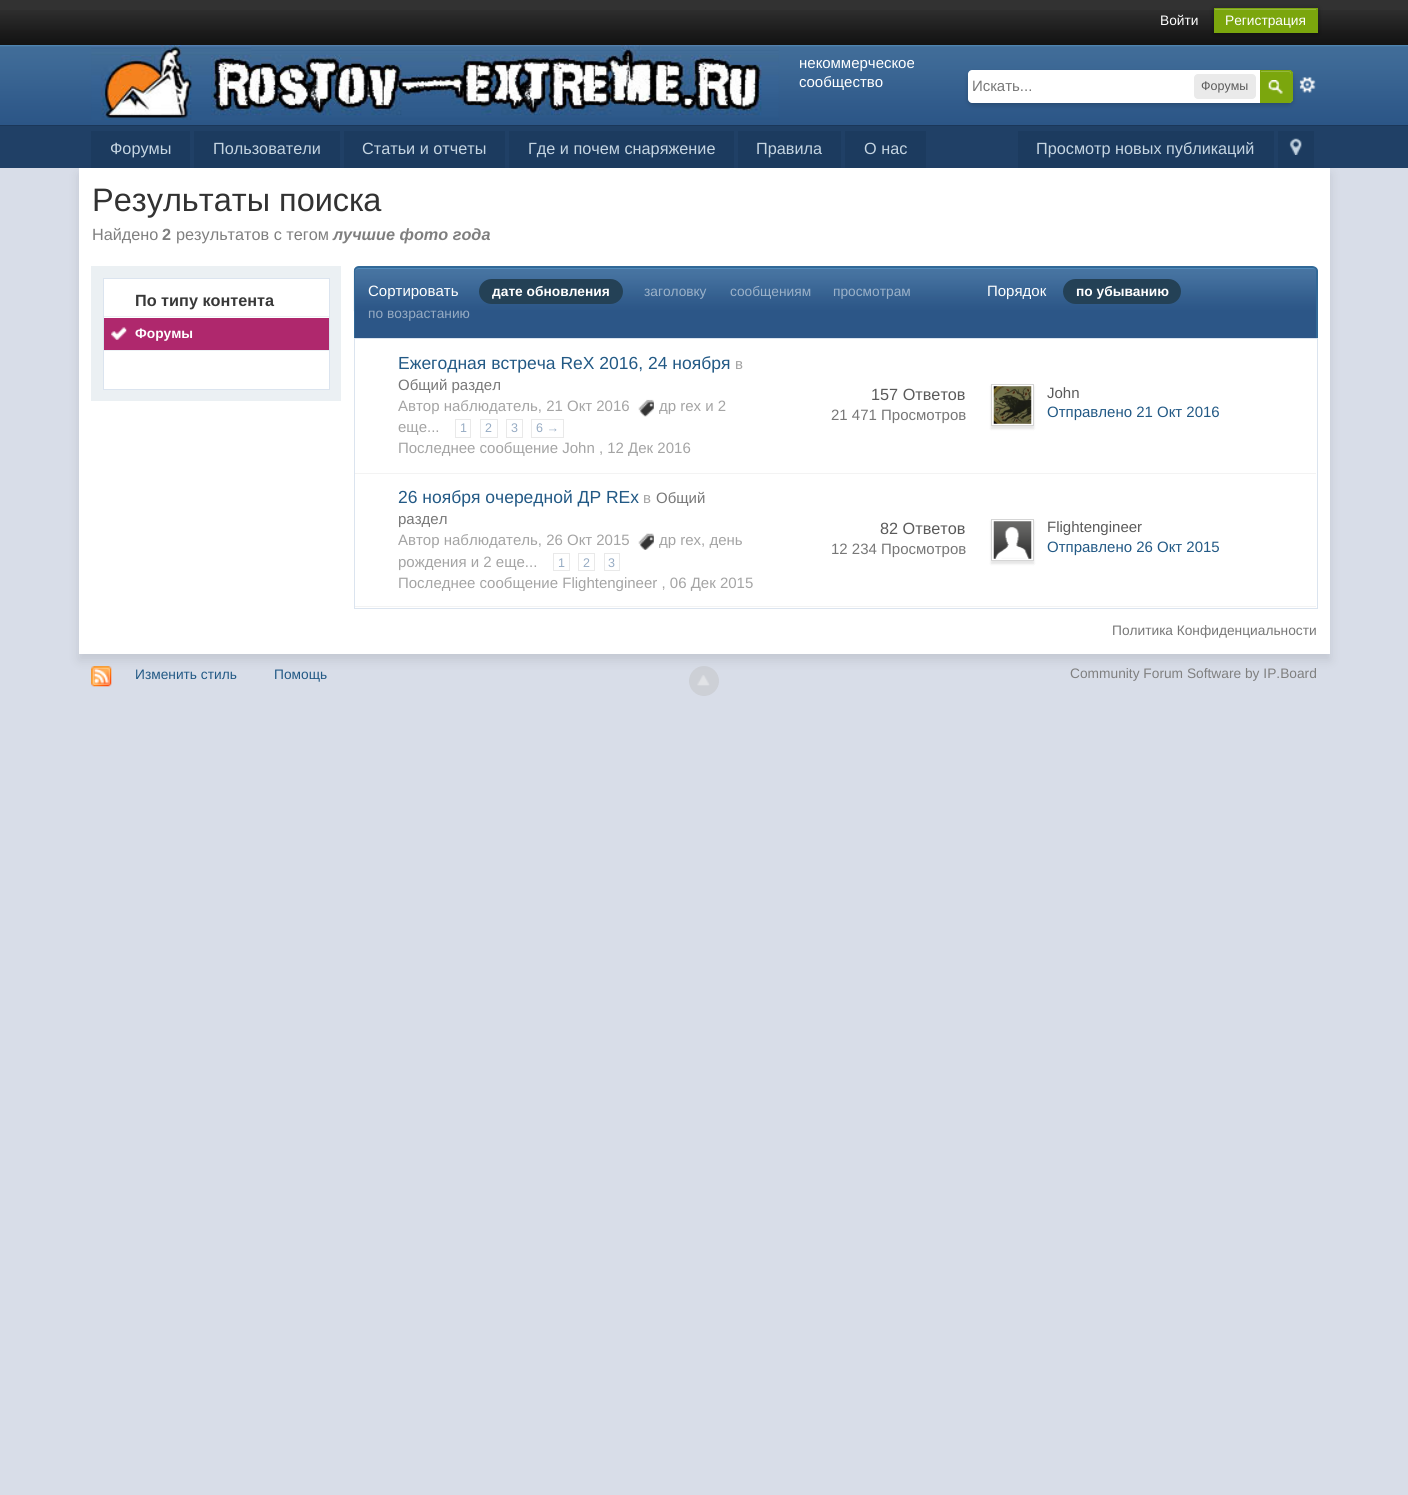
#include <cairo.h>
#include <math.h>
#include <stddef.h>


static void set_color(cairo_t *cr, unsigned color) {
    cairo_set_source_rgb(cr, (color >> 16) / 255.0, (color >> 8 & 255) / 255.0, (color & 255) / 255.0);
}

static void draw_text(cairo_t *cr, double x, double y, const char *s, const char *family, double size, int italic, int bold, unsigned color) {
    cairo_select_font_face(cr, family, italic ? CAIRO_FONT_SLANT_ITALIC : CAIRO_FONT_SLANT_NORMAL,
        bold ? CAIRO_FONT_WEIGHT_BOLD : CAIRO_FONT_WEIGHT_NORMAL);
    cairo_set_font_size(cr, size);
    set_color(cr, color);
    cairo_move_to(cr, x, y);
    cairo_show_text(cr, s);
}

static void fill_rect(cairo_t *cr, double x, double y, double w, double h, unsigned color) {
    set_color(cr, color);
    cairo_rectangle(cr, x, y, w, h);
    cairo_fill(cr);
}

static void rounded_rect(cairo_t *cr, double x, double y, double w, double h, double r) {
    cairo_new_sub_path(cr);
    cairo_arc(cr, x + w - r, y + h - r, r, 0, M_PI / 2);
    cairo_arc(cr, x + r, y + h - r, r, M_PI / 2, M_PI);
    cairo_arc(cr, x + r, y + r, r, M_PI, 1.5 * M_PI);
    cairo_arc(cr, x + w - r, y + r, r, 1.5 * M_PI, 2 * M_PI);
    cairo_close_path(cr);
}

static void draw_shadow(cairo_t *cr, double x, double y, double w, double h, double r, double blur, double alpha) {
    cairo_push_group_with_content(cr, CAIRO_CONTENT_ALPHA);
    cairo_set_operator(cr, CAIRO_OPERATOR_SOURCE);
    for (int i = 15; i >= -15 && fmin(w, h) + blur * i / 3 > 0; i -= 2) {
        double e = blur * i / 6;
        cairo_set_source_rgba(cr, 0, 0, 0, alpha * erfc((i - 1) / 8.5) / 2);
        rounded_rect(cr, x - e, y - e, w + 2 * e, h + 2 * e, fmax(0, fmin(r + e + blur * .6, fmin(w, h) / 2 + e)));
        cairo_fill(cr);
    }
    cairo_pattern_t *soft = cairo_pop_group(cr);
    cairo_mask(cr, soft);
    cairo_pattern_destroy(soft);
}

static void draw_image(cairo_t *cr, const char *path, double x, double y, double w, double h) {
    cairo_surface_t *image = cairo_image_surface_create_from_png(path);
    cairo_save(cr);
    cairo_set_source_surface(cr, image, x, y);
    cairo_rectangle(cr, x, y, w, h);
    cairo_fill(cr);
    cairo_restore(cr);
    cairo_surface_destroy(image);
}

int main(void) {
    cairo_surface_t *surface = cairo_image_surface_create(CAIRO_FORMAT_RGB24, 1408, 1495);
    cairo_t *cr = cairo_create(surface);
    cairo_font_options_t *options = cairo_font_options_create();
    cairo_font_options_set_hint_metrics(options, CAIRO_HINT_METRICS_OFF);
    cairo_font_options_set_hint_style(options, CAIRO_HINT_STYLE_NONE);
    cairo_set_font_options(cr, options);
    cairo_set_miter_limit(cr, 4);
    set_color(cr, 0xD8DDE8);
    cairo_paint(cr);
    fill_rect(cr, 0, 0, 1408, 10, 0x323232);
    draw_image(cr, "assets/img1.png", 0, 10, 1408, 35);
    draw_text(cr, 1160, 25, "Войти", "Liberation Sans", 13.75, 0, 0, 0xFFFFFF);
    set_color(cr, 0x000000);
    draw_shadow(cr, 1214, 9, 104, 25, 0, 2.5, 0.4);
    fill_rect(cr, 1214, 8, 104, 25, 0x7BA60D);
    fill_rect(cr, 1215, 9, 101, 1, 0x95B83D);
    draw_text(cr, 1225, 25, "Регистрация", "Liberation Sans", 13.75, 0, 0, 0xFFFFFF);
    draw_image(cr, "assets/img2.png", 0, 45, 1408, 80);
    fill_rect(cr, 0, 125, 1408, 1, 0x1B3759);
    draw_image(cr, "assets/img3.png", 91, 45, 688, 75);
    draw_text(cr, 799, 68, "некоммерческое", "Liberation Sans", 15, 0, 0, 0xFFFFFF);
    draw_text(cr, 799, 87, "сообщество", "Liberation Sans", 15, 0, 0, 0xFFFFFF);
    draw_image(cr, "assets/img5.png", 1299, 77, 17, 16);
    set_color(cr, 0x000000);
    draw_shadow(cr, 968, 73, 325, 32, 5, 2.5, 0.2);
    set_color(cr, 0xFFFFFF);
    cairo_new_path(cr);
    cairo_move_to(cr, 972, 70);
    cairo_line_to(cr, 1288, 70);
    cairo_curve_to(cr, 1291, 70, 1293, 72, 1293, 75);
    cairo_line_to(cr, 1293, 98);
    cairo_curve_to(cr, 1293, 101, 1291, 103, 1288, 103);
    cairo_line_to(cr, 972, 103);
    cairo_curve_to(cr, 970, 103, 968, 101, 968, 99);
    cairo_line_to(cr, 968, 74);
    cairo_curve_to(cr, 968, 72, 970, 70, 972, 70);
    cairo_close_path(cr);
    cairo_fill(cr);
    draw_text(cr, 972, 91, "Искать...", "Liberation Sans", 15, 0, 0, 0x777777);
    set_color(cr, 0xEAEAEA);
    rounded_rect(cr, 1194, 74, 62, 25, 4);
    cairo_fill(cr);
    draw_text(cr, 1201, 90, "Форумы", "Liberation Sans", 12.5, 0, 0, 0x5A5A5A);
    set_color(cr, 0x7BA60D);
    cairo_new_path(cr);
    cairo_move_to(cr, 1260, 70);
    cairo_line_to(cr, 1289, 70);
    cairo_curve_to(cr, 1291, 70, 1293, 72, 1293, 74);
    cairo_line_to(cr, 1293, 99);
    cairo_curve_to(cr, 1293, 101, 1291, 103, 1289, 103);
    cairo_line_to(cr, 1260, 103);
    cairo_close_path(cr);
    cairo_fill(cr);
    draw_image(cr, "assets/img4.png", 1268, 80, 15, 14);
    set_color(cr, 0x95B83D);
    cairo_new_path(cr);
    cairo_move_to(cr, 1261, 72);
    cairo_line_to(cr, 1289, 72);
    cairo_curve_to(cr, 1290, 72, 1291, 74, 1291, 75);
    cairo_line_to(cr, 1291, 73.5);
    cairo_curve_to(cr, 1291, 72, 1290, 71, 1288.5, 71);
    cairo_line_to(cr, 1261, 71);
    cairo_close_path(cr);
    cairo_fill(cr);
    cairo_new_path(cr);
    cairo_move_to(cr, 1260.5, 70.5);
    cairo_line_to(cr, 1289, 70.5);
    cairo_curve_to(cr, 1291, 70.5, 1292.5, 72, 1292.5, 74);
    cairo_line_to(cr, 1292.5, 99);
    cairo_curve_to(cr, 1292.5, 101, 1291, 102.5, 1289, 102.5);
    cairo_line_to(cr, 1260.5, 102.5);
    cairo_close_path(cr);
    set_color(cr, 0x7BA60D);
    cairo_set_line_width(cr, 1);
    cairo_stroke(cr);
    fill_rect(cr, 0, 126, 1408, 42, 0x204066);
    set_color(cr, 0x000000);
    draw_shadow(cr, 79, 174, 1251, 486, 0, 5.5, 0.1);
    fill_rect(cr, 91, 131, 99, 37, 0x1C3B5F);
    draw_text(cr, 110, 154, "Форумы", "Liberation Sans", 16.25, 0, 0, 0xC5D5E2);
    fill_rect(cr, 194, 131, 146, 37, 0x1C3B5F);
    draw_text(cr, 213, 154, "Пользователи", "Liberation Sans", 16.25, 0, 0, 0xC5D5E2);
    fill_rect(cr, 344, 131, 161, 37, 0x1C3B5F);
    draw_text(cr, 362, 154, "Статьи и отчеты", "Liberation Sans", 16.25, 0, 0, 0xC5D5E2);
    fill_rect(cr, 509, 131, 225, 37, 0x1C3B5F);
    draw_text(cr, 528, 154, "Где и почем снаряжение", "Liberation Sans", 16.25, 0, 0, 0xC5D5E2);
    fill_rect(cr, 738, 131, 103, 37, 0x1C3B5F);
    draw_text(cr, 756, 154, "Правила", "Liberation Sans", 16.25, 0, 0, 0xC5D5E2);
    fill_rect(cr, 845, 131, 81, 37, 0x1C3B5F);
    draw_text(cr, 864, 154, "О нас", "Liberation Sans", 16.25, 0, 0, 0xC5D5E2);
    fill_rect(cr, 1018, 131, 256, 37, 0x1C3B5F);
    draw_text(cr, 1036, 154, "Просмотр новых публикаций", "Liberation Sans", 16.25, 0, 0, 0xC5D5E2);
    fill_rect(cr, 1278, 131, 36, 37, 0x1C3B5F);
    draw_image(cr, "assets/img6.png", 1289, 138, 13, 17);
    fill_rect(cr, 79, 168, 1251, 486, 0xFFFFFF);
    draw_text(cr, 92, 211, "Результаты поиска", "Liberation Sans", 32.5, 0, 0, 0x323232);
    draw_text(cr, 92, 240, "Найдено", "Liberation Sans", 16.25, 0, 0, 0x7F7F7F);
    draw_text(cr, 162, 240, "2", "Liberation Sans", 16.25, 0, 1, 0x7F7F7F);
    draw_text(cr, 176, 240, "результатов с тегом", "Liberation Sans", 16.25, 0, 0, 0x7F7F7F);
    draw_text(cr, 333, 240, "лучшие фото года", "Liberation Sans", 16.25, 1, 1, 0x7F7F7F);
    fill_rect(cr, 91, 266, 250, 135, 0xEBF0F3);
    set_color(cr, 0xFFFFFF);
    cairo_rectangle(cr, 103.5, 278.5, 226, 111);
    cairo_fill_preserve(cr);
    set_color(cr, 0xDBE4EF);
    cairo_stroke(cr);
    draw_text(cr, 135, 306, "По типу контента", "Liberation Sans", 16.25, 0, 1, 0x383838);
    fill_rect(cr, 104, 316, 225, 1, 0xEDF1F5);
    fill_rect(cr, 104, 350, 225, 1, 0xEDF1F5);
    fill_rect(cr, 104, 318, 225, 32, 0xAF286D);
    draw_image(cr, "assets/img7.png", 111, 327, 16, 13);
    draw_text(cr, 135, 338, "Форумы", "Liberation Sans", 13.75, 0, 1, 0xFFFFFF);
    fill_rect(cr, 355, 311, 961, 27, 0x2C5687);
    draw_image(cr, "assets/img8.png", 353, 267, 965, 45);
    set_color(cr, 0x528CBC);
    cairo_new_path(cr);
    cairo_move_to(cr, 359, 269);
    cairo_line_to(cr, 1312, 269);
    cairo_curve_to(cr, 1314, 269, 1315, 269, 1316, 270);
    cairo_curve_to(cr, 1315, 269, 1314, 268, 1312, 268);
    cairo_line_to(cr, 359, 268);
    cairo_curve_to(cr, 357, 268, 355, 270, 355, 272);
    cairo_curve_to(cr, 355, 270, 357, 269, 359, 269);
    cairo_close_path(cr);
    cairo_fill(cr);
    set_color(cr, 0x316897);
    cairo_set_fill_rule(cr, CAIRO_FILL_RULE_EVEN_ODD);
    cairo_new_path(cr);
    cairo_move_to(cr, 359, 266);
    cairo_line_to(cr, 1312, 266);
    cairo_curve_to(cr, 1315, 266, 1318, 268, 1318, 271);
    cairo_line_to(cr, 1318, 338);
    cairo_line_to(cr, 354, 338);
    cairo_line_to(cr, 354, 271);
    cairo_curve_to(cr, 354, 268, 356, 266, 359, 266);
    cairo_close_path(cr);
    cairo_move_to(cr, 359, 268);
    cairo_line_to(cr, 1312, 268);
    cairo_curve_to(cr, 1315, 268, 1316, 269, 1316, 271);
    cairo_line_to(cr, 1316, 338);
    cairo_line_to(cr, 355, 338);
    cairo_line_to(cr, 355, 271);
    cairo_curve_to(cr, 355, 269, 357, 268, 359, 268);
    cairo_close_path(cr);
    cairo_fill(cr);
    draw_text(cr, 368, 296, "Сортировать", "Liberation Sans", 15, 0, 0, 0xFFFFFF);
    set_color(cr, 0x244156);
    rounded_rect(cr, 1063, 279, 118, 25, 12.5);
    cairo_fill(cr);
    draw_text(cr, 1076, 296, "по убыванию", "Liberation Sans", 13.75, 0, 1, 0xFFFFFF);
    draw_text(cr, 368, 318, "по возрастанию", "Liberation Sans", 13.75, 0, 0, 0x96ABC3);
    set_color(cr, 0x244156);
    rounded_rect(cr, 479, 279, 144, 25, 12.5);
    cairo_fill(cr);
    draw_text(cr, 492, 296, "дате обновления", "Liberation Sans", 13.75, 0, 1, 0xFFFFFF);
    draw_text(cr, 644, 296, "заголовку", "Liberation Sans", 13.75, 0, 0, 0x9BB1C9);
    draw_text(cr, 730, 296, "сообщениям", "Liberation Sans", 13.75, 0, 0, 0x9BB1C9);
    draw_text(cr, 833, 296, "просмотрам", "Liberation Sans", 13.75, 0, 0, 0x9BB1C9);
    draw_text(cr, 987, 296, "Порядок", "Liberation Sans", 15, 0, 0, 0xFFFFFF);
    cairo_rectangle(cr, 354.5, 338.5, 963, 270);
    set_color(cr, 0xDBE4EF);
    cairo_stroke(cr);
    draw_text(cr, 398, 369, "Ежегодная встреча ReX 2016, 24 ноября", "Liberation Sans", 17.5, 0, 0, 0x225985);
    draw_text(cr, 735, 369, "в", "Liberation Sans", 15, 0, 0, 0xA4A4A4);
    draw_text(cr, 398, 390, "Общий раздел", "Liberation Sans", 15, 0, 0, 0x777777);
    draw_text(cr, 398, 411, "Автор наблюдатель, 21 Окт 2016", "Liberation Sans", 15, 0, 0, 0xA4A4A4);
    draw_image(cr, "assets/img9.png", 638, 399, 16, 18);
    draw_text(cr, 659, 411, "др rex и 2", "Liberation Sans", 15, 0, 0, 0xA4A4A4);
    draw_text(cr, 398, 432, "еще...", "Liberation Sans", 15, 0, 0, 0xA4A4A4);
    cairo_rectangle(cr, 455.5, 419.5, 15, 18);
    set_color(cr, 0xE9E9E9);
    cairo_stroke(cr);
    draw_text(cr, 460, 432, "1", "Liberation Sans", 12.5, 0, 0, 0x96ABC3);
    cairo_rectangle(cr, 480.5, 419.5, 17, 18);
    set_color(cr, 0xE9E9E9);
    cairo_stroke(cr);
    draw_text(cr, 485, 432, "2", "Liberation Sans", 12.5, 0, 0, 0x96ABC3);
    cairo_rectangle(cr, 506.5, 419.5, 16, 18);
    set_color(cr, 0xE9E9E9);
    cairo_stroke(cr);
    draw_text(cr, 511, 432, "3", "Liberation Sans", 12.5, 0, 0, 0x96ABC3);
    cairo_rectangle(cr, 531.5, 419.5, 32, 18);
    set_color(cr, 0xE9E9E9);
    cairo_stroke(cr);
    draw_text(cr, 536, 432, "6 →", "Liberation Sans", 12.5, 0, 0, 0x96ABC3);
    draw_text(cr, 398, 453, "Последнее сообщение John , 12 Дек 2016", "Liberation Sans", 15, 0, 0, 0xA4A4A4);
    draw_text(cr, 871, 400, "157 Ответов", "Liberation Sans", 16.25, 0, 0, 0x5A5A5A);
    draw_text(cr, 831, 420, "21 471 Просмотров", "Liberation Sans", 15, 0, 0, 0x777777);
    fill_rect(cr, 355, 473, 961, 1, 0xF3F3F3);
    set_color(cr, 0x000000);
    draw_shadow(cr, 991, 386, 43, 43, 0, 1, 0.1);
    set_color(cr, 0xFFFFFF);
    cairo_rectangle(cr, 991.5, 384.5, 42, 41);
    cairo_fill_preserve(cr);
    set_color(cr, 0xD5D5D5);
    cairo_stroke(cr);
    draw_image(cr, "assets/img10.png", 993, 386, 39, 38);
    draw_text(cr, 1047, 398, "John", "Liberation Sans", 15, 0, 0, 0x5A5A5A);
    draw_text(cr, 1047, 417, "Отправлено 21 Окт 2016", "Liberation Sans", 15, 0, 0, 0x225985);
    draw_text(cr, 398, 503, "26 ноября очередной ДР REx", "Liberation Sans", 17.5, 0, 0, 0x225985);
    draw_text(cr, 643, 503, "в", "Liberation Sans", 15, 0, 0, 0xA4A4A4);
    draw_text(cr, 656, 503, "Общий", "Liberation Sans", 15, 0, 0, 0x777777);
    draw_text(cr, 398, 524, "раздел", "Liberation Sans", 15, 0, 0, 0x777777);
    draw_text(cr, 398, 545, "Автор наблюдатель, 26 Окт 2015", "Liberation Sans", 15, 0, 0, 0xA4A4A4);
    draw_image(cr, "assets/img11.png", 638, 533, 16, 17);
    draw_text(cr, 659, 545, "др rex, день", "Liberation Sans", 15, 0, 0, 0xA4A4A4);
    draw_text(cr, 398, 567, "рождения и 2 еще...", "Liberation Sans", 15, 0, 0, 0xA4A4A4);
    cairo_rectangle(cr, 553.5, 553.5, 16, 17);
    set_color(cr, 0xE9E9E9);
    cairo_stroke(cr);
    draw_text(cr, 558, 567, "1", "Liberation Sans", 12.5, 0, 0, 0x96ABC3);
    cairo_rectangle(cr, 578.5, 553.5, 16, 17);
    set_color(cr, 0xE9E9E9);
    cairo_stroke(cr);
    draw_text(cr, 583, 567, "2", "Liberation Sans", 12.5, 0, 0, 0x96ABC3);
    cairo_rectangle(cr, 604.5, 553.5, 15, 17);
    set_color(cr, 0xE9E9E9);
    cairo_stroke(cr);
    draw_text(cr, 608, 567, "3", "Liberation Sans", 12.5, 0, 0, 0x96ABC3);
    draw_text(cr, 398, 588, "Последнее сообщение Flightengineer , 06 Дек 2015", "Liberation Sans", 15, 0, 0, 0xA4A4A4);
    draw_text(cr, 880, 534, "82 Ответов", "Liberation Sans", 16.25, 0, 0, 0x5A5A5A);
    draw_text(cr, 831, 554, "12 234 Просмотров", "Liberation Sans", 15, 0, 0, 0x777777);
    fill_rect(cr, 355, 606, 961, 1, 0xF3F3F3);
    set_color(cr, 0x000000);
    draw_shadow(cr, 991, 521, 43, 43, 0, 1, 0.1);
    set_color(cr, 0xFFFFFF);
    cairo_rectangle(cr, 991.5, 519.5, 42, 41);
    cairo_fill_preserve(cr);
    set_color(cr, 0xD5D5D5);
    cairo_stroke(cr);
    draw_image(cr, "assets/img12.png", 993, 521, 39, 38);
    draw_text(cr, 1047, 532, "Flightengineer", "Liberation Sans", 15, 0, 0, 0x5A5A5A);
    draw_text(cr, 1047, 552, "Отправлено 26 Окт 2015", "Liberation Sans", 15, 0, 0, 0x225985);
    draw_text(cr, 1112, 635, "Политика Конфиденциальности", "Liberation Sans", 13.75, 0, 0, 0x777777);
    draw_image(cr, "assets/img13.png", 91, 666, 21, 21);
    draw_text(cr, 135, 679, "Изменить стиль", "Liberation Sans", 13.75, 0, 0, 0x225985);
    draw_text(cr, 274, 679, "Помощь", "Liberation Sans", 13.75, 0, 0, 0x225985);
    cairo_set_source_rgba(cr, 0.741, 0.741, 0.741, 0.4);
    cairo_new_path(cr);
    cairo_arc(cr, 704, 681, 15, 0, 2 * M_PI);
    cairo_fill(cr);
    draw_image(cr, "assets/img14.png", 697, 675, 13, 11);
    draw_text(cr, 1070, 678, "Community Forum Software by IP.Board", "Liberation Sans", 13.75, 0, 0, 0x7F7F7F);
    cairo_surface_write_to_png(surface, "output.png");
    cairo_font_options_destroy(options);
    cairo_destroy(cr);
    cairo_surface_destroy(surface);
    return 0;
}
